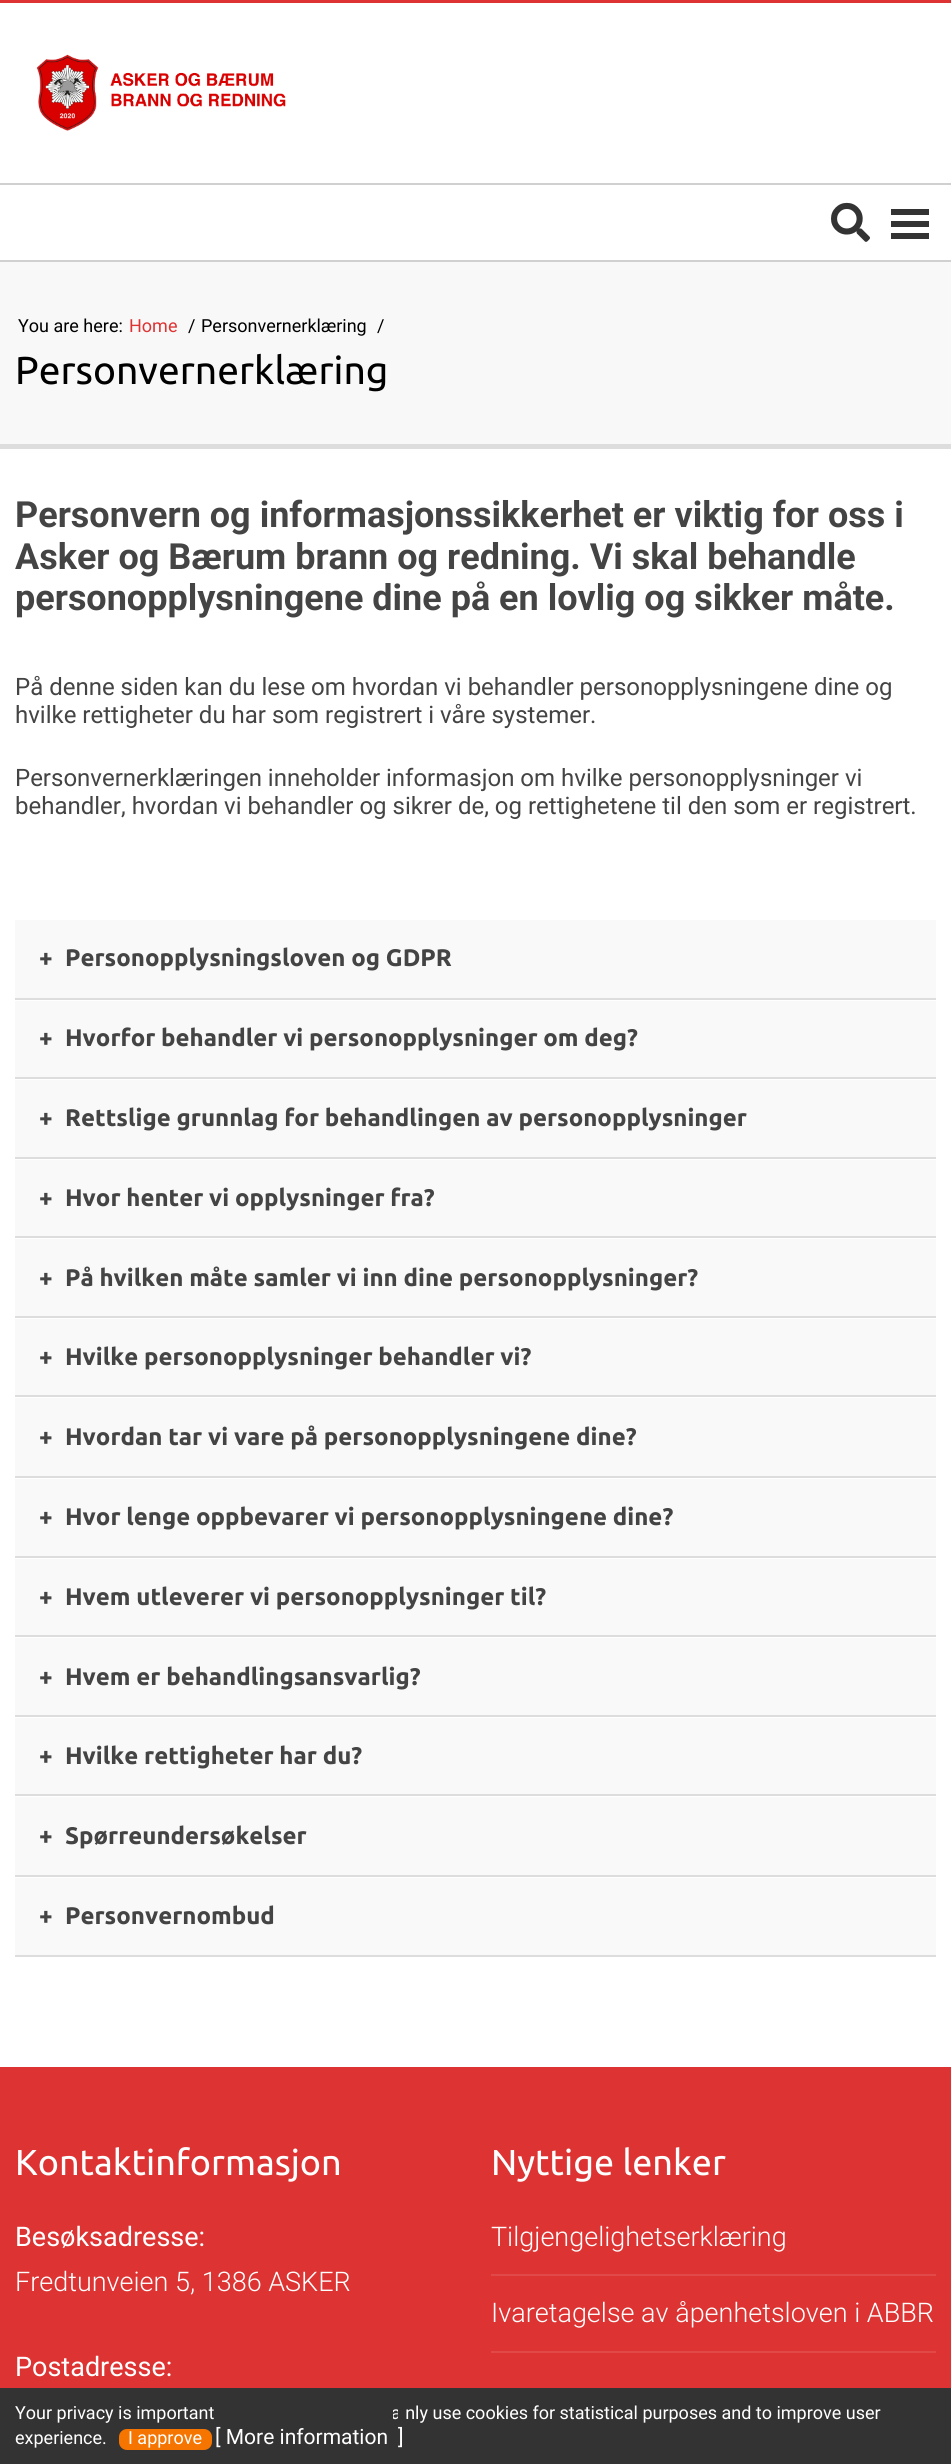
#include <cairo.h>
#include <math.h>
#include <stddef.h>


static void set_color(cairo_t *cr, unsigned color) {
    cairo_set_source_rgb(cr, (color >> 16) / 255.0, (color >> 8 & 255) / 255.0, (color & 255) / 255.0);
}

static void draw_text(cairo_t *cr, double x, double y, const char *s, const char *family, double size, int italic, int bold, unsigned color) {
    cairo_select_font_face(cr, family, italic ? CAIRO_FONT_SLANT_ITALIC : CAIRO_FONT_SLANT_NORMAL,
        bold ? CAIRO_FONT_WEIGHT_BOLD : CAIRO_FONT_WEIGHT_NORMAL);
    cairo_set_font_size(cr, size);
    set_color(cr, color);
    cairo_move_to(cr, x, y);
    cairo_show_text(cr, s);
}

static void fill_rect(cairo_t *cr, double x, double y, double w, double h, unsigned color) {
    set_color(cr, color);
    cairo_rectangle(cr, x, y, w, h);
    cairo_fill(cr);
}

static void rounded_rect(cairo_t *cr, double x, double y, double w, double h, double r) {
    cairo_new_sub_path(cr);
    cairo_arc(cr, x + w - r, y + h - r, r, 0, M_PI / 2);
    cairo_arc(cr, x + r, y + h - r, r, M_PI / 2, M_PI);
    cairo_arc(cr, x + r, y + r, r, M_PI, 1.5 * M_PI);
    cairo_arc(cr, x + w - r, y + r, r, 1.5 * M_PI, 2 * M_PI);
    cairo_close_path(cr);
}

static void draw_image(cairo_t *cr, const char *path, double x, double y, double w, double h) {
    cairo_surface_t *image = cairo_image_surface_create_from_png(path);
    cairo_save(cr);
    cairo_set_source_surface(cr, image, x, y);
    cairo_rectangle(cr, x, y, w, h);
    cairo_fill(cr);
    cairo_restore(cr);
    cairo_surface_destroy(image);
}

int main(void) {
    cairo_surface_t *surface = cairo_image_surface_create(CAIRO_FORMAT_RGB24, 951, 2464);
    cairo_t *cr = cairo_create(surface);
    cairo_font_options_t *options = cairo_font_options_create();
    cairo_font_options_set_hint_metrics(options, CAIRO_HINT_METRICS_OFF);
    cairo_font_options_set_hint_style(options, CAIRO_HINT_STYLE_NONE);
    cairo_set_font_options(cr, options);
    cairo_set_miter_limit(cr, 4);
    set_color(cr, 0xFFFFFF);
    cairo_paint(cr);
    fill_rect(cr, 0, 0, 951, 3, 0xDD3333);
    draw_image(cr, "assets/img1.png", 36, 54, 250, 77);
    fill_rect(cr, 0, 183, 951, 2, 0xD0D0D0);
    fill_rect(cr, 0, 260, 951, 2, 0xD0D0D0);
    draw_image(cr, "assets/img2.png", 831, 202, 39, 40);
    fill_rect(cr, 891, 209, 38, 6, 0x333333);
    fill_rect(cr, 891, 221, 38, 6, 0x333333);
    fill_rect(cr, 891, 233, 38, 6, 0x333333);
    fill_rect(cr, 0, 262, 951, 182, 0xF8F8F8);
    fill_rect(cr, 0, 444, 951, 5, 0xDDDDDD);
    draw_text(cr, 18, 332, "You are here:", "Roboto", 18, 0, 0, 0x000000);
    draw_text(cr, 129, 332, "Home", "Roboto", 18, 0, 0, 0xDD3333);
    draw_text(cr, 188, 332, "/", "Roboto", 18, 0, 0, 0x000000);
    draw_text(cr, 201, 332, "Personvernerklæring", "Roboto", 18, 0, 0, 0x000000);
    draw_text(cr, 377, 332, "/", "Roboto", 18, 0, 0, 0x000000);
    draw_text(cr, 15, 384, "Personvernerklæring", "Ubuntu", 39, 0, 0, 0x000000);
    draw_text(cr, 15, 527, "Personvern og informasjonssikkerhet er viktig for oss i", "Roboto", 36, 0, 1, 0x444444);
    draw_text(cr, 15, 569, "Asker og Bærum brann og redning. Vi skal behandle", "Roboto", 36, 0, 1, 0x444444);
    draw_text(cr, 15, 610, "personopplysningene dine på en lovlig og sikker måte.", "Roboto", 36, 0, 1, 0x444444);
    draw_text(cr, 15, 695, "På denne siden kan du lese om hvordan vi behandler personopplysningene dine og", "Roboto", 24, 0, 0, 0x444444);
    draw_text(cr, 15, 723, "hvilke rettigheter du har som registrert i våre systemer.", "Roboto", 24, 0, 0, 0x444444);
    draw_text(cr, 15, 786, "Personvernerklæringen inneholder informasjon om hvilke personopplysninger vi", "Roboto", 24, 0, 0, 0x444444);
    draw_text(cr, 15, 814, "behandler, hvordan vi behandler og sikrer de, og rettighetene til den som er registrert.", "Roboto", 24, 0, 0, 0x444444);
    fill_rect(cr, 15, 920, 921, 78, 0xF9F9F9);
    fill_rect(cr, 15, 998, 921, 2, 0xDDDDDD);
    draw_text(cr, 39, 966, "+", "Ubuntu", 24, 0, 1, 0x444444);
    draw_text(cr, 65, 966, "Personopplysningsloven og GDPR", "Ubuntu", 24, 0, 1, 0x444444);
    fill_rect(cr, 15, 1001, 921, 76, 0xF9F9F9);
    fill_rect(cr, 15, 1077, 921, 2, 0xDDDDDD);
    draw_text(cr, 39, 1046, "+", "Ubuntu", 24, 0, 1, 0x444444);
    draw_text(cr, 65, 1046, "Hvorfor behandler vi personopplysninger om deg?", "Ubuntu", 24, 0, 1, 0x444444);
    fill_rect(cr, 15, 1080, 921, 77, 0xF9F9F9);
    fill_rect(cr, 15, 1157, 921, 2, 0xDDDDDD);
    draw_text(cr, 39, 1126, "+", "Ubuntu", 24, 0, 1, 0x444444);
    draw_text(cr, 65, 1126, "Rettslige grunnlag for behandlingen av personopplysninger", "Ubuntu", 24, 0, 1, 0x444444);
    fill_rect(cr, 15, 1160, 921, 76, 0xF9F9F9);
    fill_rect(cr, 15, 1236, 921, 2, 0xDDDDDD);
    draw_text(cr, 39, 1206, "+", "Ubuntu", 24, 0, 1, 0x444444);
    draw_text(cr, 65, 1206, "Hvor henter vi opplysninger fra?", "Ubuntu", 24, 0, 1, 0x444444);
    fill_rect(cr, 15, 1239, 921, 77, 0xF9F9F9);
    fill_rect(cr, 15, 1316, 921, 2, 0xDDDDDD);
    draw_text(cr, 39, 1286, "+", "Ubuntu", 24, 0, 1, 0x444444);
    draw_text(cr, 65, 1286, "På hvilken måte samler vi inn dine personopplysninger?", "Ubuntu", 24, 0, 1, 0x444444);
    fill_rect(cr, 15, 1319, 921, 76, 0xF9F9F9);
    fill_rect(cr, 15, 1395, 921, 2, 0xDDDDDD);
    draw_text(cr, 39, 1365, "+", "Ubuntu", 24, 0, 1, 0x444444);
    draw_text(cr, 65, 1365, "Hvilke personopplysninger behandler vi?", "Ubuntu", 24, 0, 1, 0x444444);
    fill_rect(cr, 15, 1398, 921, 78, 0xF9F9F9);
    fill_rect(cr, 15, 1476, 921, 2, 0xDDDDDD);
    draw_text(cr, 39, 1445, "+", "Ubuntu", 24, 0, 1, 0x444444);
    draw_text(cr, 65, 1445, "Hvordan tar vi vare på personopplysningene dine?", "Ubuntu", 24, 0, 1, 0x444444);
    fill_rect(cr, 15, 1479, 921, 77, 0xF9F9F9);
    fill_rect(cr, 15, 1556, 921, 2, 0xDDDDDD);
    draw_text(cr, 39, 1525, "+", "Ubuntu", 24, 0, 1, 0x444444);
    draw_text(cr, 65, 1525, "Hvor lenge oppbevarer vi personopplysningene dine?", "Ubuntu", 24, 0, 1, 0x444444);
    fill_rect(cr, 15, 1559, 921, 76, 0xF9F9F9);
    fill_rect(cr, 15, 1635, 921, 2, 0xDDDDDD);
    draw_text(cr, 39, 1605, "+", "Ubuntu", 24, 0, 1, 0x444444);
    draw_text(cr, 65, 1605, "Hvem utleverer vi personopplysninger til?", "Ubuntu", 24, 0, 1, 0x444444);
    fill_rect(cr, 15, 1638, 921, 77, 0xF9F9F9);
    fill_rect(cr, 15, 1715, 921, 2, 0xDDDDDD);
    draw_text(cr, 39, 1685, "+", "Ubuntu", 24, 0, 1, 0x444444);
    draw_text(cr, 65, 1685, "Hvem er behandlingsansvarlig?", "Ubuntu", 24, 0, 1, 0x444444);
    fill_rect(cr, 15, 1718, 921, 76, 0xF9F9F9);
    fill_rect(cr, 15, 1794, 921, 2, 0xDDDDDD);
    draw_text(cr, 39, 1764, "+", "Ubuntu", 24, 0, 1, 0x444444);
    draw_text(cr, 65, 1764, "Hvilke rettigheter har du?", "Ubuntu", 24, 0, 1, 0x444444);
    fill_rect(cr, 15, 1797, 921, 78, 0xF9F9F9);
    fill_rect(cr, 15, 1875, 921, 2, 0xDDDDDD);
    draw_text(cr, 39, 1844, "+", "Ubuntu", 24, 0, 1, 0x444444);
    draw_text(cr, 65, 1844, "Spørreundersøkelser", "Ubuntu", 24, 0, 1, 0x444444);
    fill_rect(cr, 15, 1878, 921, 77, 0xF9F9F9);
    fill_rect(cr, 15, 1955, 921, 2, 0xDDDDDD);
    draw_text(cr, 39, 1924, "+", "Ubuntu", 24, 0, 1, 0x444444);
    draw_text(cr, 65, 1924, "Personvernombud", "Ubuntu", 24, 0, 1, 0x444444);
    fill_rect(cr, 0, 2067, 951, 321, 0xDD3333);
    draw_text(cr, 15, 2175, "Kontaktinformasjon", "Ubuntu", 36, 0, 0, 0xFFFFFF);
    draw_text(cr, 15, 2246, "Besøksadresse:", "Roboto", 27, 0, 0, 0xFFFFFF);
    draw_text(cr, 15, 2291, "Fredtunveien 5, 1386 ASKER", "Roboto Light", 27, 0, 0, 0xFFFFFF);
    draw_text(cr, 15, 2376, "Postadresse:", "Roboto", 27, 0, 0, 0xFFFFFF);
    draw_text(cr, 491, 2175, "Nyttige lenker", "Ubuntu", 36, 0, 0, 0xFFFFFF);
    fill_rect(cr, 491, 2274, 445, 2, 0xE14949);
    draw_text(cr, 491, 2246, "Tilgjengelighetserklæring", "Roboto Light", 27, 0, 0, 0xFFFFFF);
    fill_rect(cr, 491, 2351, 445, 2, 0xE14949);
    draw_text(cr, 491, 2322, "Ivaretagelse av åpenhetsloven i ABBR", "Roboto Light", 27, 0, 0, 0xFFFFFF);
    fill_rect(cr, 0, 2388, 951, 76, 0x333333);
    draw_text(cr, 15, 2419, "Your privacy is important", "Roboto", 18, 0, 0, 0xFFFFFF);
    draw_text(cr, 391, 2419, "ainly use cookies for statistical purposes and to improve user", "Roboto", 18, 0, 0, 0xFFFFFF);
    draw_text(cr, 15, 2444, "experience.", "Roboto", 18, 0, 0, 0xFFFFFF);
    set_color(cr, 0xF67400);
    rounded_rect(cr, 119, 2429, 93, 21, 8);
    cairo_fill(cr);
    draw_text(cr, 128, 2444, "I approve", "Roboto", 18, 0, 0, 0xFFFFFF);
    draw_text(cr, 215, 2444, "[ More information", "Roboto", 21, 0, 0, 0xFFFFFF);
    fill_rect(cr, 392, 2410, 1, 9, 0x333333);
    draw_text(cr, 398, 2444, "]", "Roboto", 21, 0, 0, 0xFFFFFF);
    fill_rect(cr, 398, 2403, 6, 16, 0x333333);
    cairo_surface_write_to_png(surface, "output.png");
    cairo_font_options_destroy(options);
    cairo_destroy(cr);
    cairo_surface_destroy(surface);
    return 0;
}
